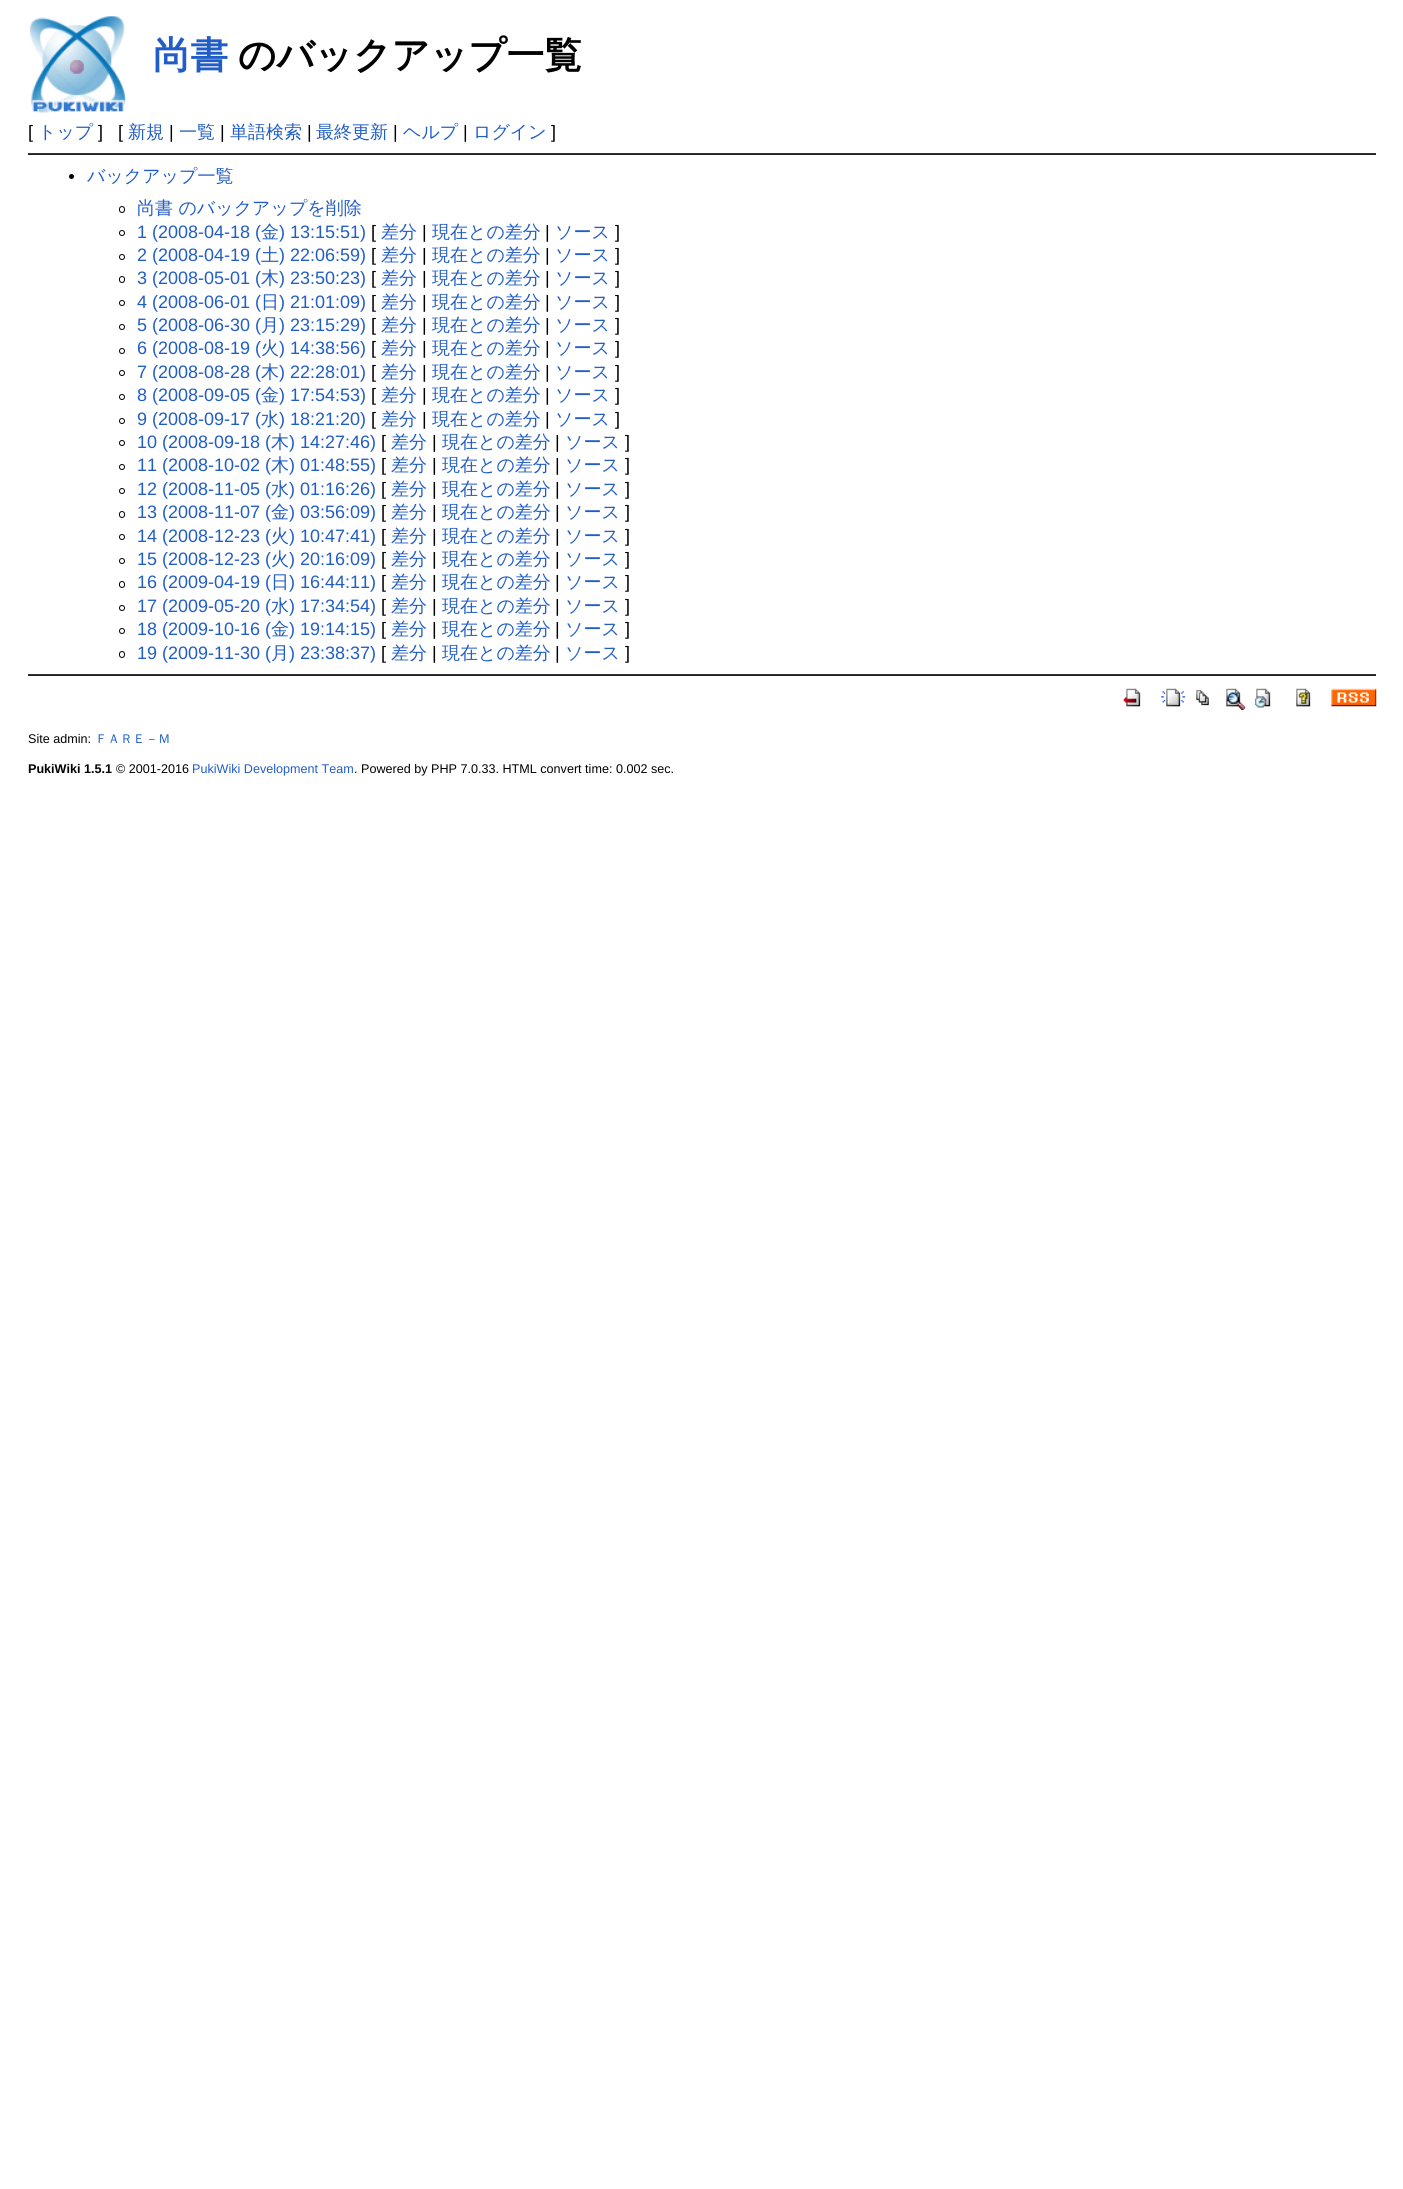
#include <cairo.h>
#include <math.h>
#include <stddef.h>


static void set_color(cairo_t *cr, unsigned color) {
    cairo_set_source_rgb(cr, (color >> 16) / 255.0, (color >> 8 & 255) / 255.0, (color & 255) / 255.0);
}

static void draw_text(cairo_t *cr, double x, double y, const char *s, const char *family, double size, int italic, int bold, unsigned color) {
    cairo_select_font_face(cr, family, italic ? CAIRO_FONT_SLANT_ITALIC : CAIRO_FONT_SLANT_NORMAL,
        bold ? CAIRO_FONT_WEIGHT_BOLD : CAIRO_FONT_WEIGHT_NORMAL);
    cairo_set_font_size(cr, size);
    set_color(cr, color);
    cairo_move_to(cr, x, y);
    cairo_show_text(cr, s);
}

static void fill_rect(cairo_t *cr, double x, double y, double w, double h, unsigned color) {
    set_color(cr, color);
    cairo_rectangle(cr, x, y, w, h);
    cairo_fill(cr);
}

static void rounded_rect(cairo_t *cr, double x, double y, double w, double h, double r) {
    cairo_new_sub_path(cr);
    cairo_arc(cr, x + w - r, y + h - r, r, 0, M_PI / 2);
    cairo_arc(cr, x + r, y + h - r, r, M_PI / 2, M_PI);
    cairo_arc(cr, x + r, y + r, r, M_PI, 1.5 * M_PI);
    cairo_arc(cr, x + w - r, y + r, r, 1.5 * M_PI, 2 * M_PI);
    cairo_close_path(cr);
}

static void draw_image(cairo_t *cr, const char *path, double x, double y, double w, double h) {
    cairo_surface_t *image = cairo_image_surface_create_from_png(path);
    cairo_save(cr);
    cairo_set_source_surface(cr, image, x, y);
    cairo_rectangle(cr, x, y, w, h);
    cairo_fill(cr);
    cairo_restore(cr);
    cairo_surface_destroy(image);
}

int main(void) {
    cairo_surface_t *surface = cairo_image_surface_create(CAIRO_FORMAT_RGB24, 1403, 2189);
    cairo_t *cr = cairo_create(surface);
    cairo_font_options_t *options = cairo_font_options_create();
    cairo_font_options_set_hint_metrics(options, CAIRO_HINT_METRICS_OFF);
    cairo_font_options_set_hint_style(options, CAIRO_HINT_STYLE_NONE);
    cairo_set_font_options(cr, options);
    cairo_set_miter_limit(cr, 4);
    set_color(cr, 0xFFFFFF);
    cairo_paint(cr);
    draw_image(cr, "assets/img1.png", 30, 16, 96, 97);
    draw_text(cr, 153, 68, "尚書", "WenQuanYi Zen Hei", 37.5, 0, 1, 0x215DC6);
    draw_text(cr, 238, 68, "のバックアップ一覧", "WenQuanYi Zen Hei", 37.5, 0, 1, 0x000000);
    draw_text(cr, 28, 138, "[", "Liberation Sans", 18, 0, 0, 0x000000);
    draw_text(cr, 38, 138, "トップ", "WenQuanYi Zen Hei Medium", 18, 0, 0, 0x215DC6);
    draw_text(cr, 98, 138, "]", "Liberation Sans", 18, 0, 0, 0x000000);
    draw_text(cr, 118, 138, "[", "Liberation Sans", 18, 0, 0, 0x000000);
    draw_text(cr, 128, 138, "新規", "WenQuanYi Zen Hei Medium", 18, 0, 0, 0x215DC6);
    draw_text(cr, 169, 138, "|", "Liberation Sans", 18, 0, 0, 0x000000);
    draw_text(cr, 179, 138, "一覧", "WenQuanYi Zen Hei Medium", 18, 0, 0, 0x215DC6);
    draw_text(cr, 220, 138, "|", "Liberation Sans", 18, 0, 0, 0x000000);
    draw_text(cr, 230, 138, "単語検索", "WenQuanYi Zen Hei Medium", 18, 0, 0, 0x215DC6);
    draw_text(cr, 307, 138, "|", "Liberation Sans", 18, 0, 0, 0x000000);
    draw_text(cr, 316, 138, "最終更新", "WenQuanYi Zen Hei Medium", 18, 0, 0, 0x215DC6);
    draw_text(cr, 393, 138, "|", "Liberation Sans", 18, 0, 0, 0x000000);
    draw_text(cr, 403, 138, "ヘルプ", "WenQuanYi Zen Hei Medium", 18, 0, 0, 0x215DC6);
    draw_text(cr, 463, 138, "|", "Liberation Sans", 18, 0, 0, 0x000000);
    draw_text(cr, 473, 138, "ログイン", "WenQuanYi Zen Hei Medium", 18, 0, 0, 0x215DC6);
    draw_text(cr, 551, 138, "]", "Liberation Sans", 18, 0, 0, 0x000000);
    fill_rect(cr, 28, 153, 1348, 1, 0x333333);
    fill_rect(cr, 28, 154, 1348, 1, 0x222222);
    set_color(cr, 0x000000);
    cairo_new_path(cr);
    cairo_arc(cr, 71.5, 176.5, 2.5, 0, 2 * M_PI);
    cairo_fill(cr);
    draw_text(cr, 87, 182, "バックアップ一覧", "WenQuanYi Zen Hei Medium", 18, 0, 0, 0x215DC6);
    rounded_rect(cr, 119.5, 206.5, 5, 6, 2.5);
    set_color(cr, 0x000000);
    cairo_set_line_width(cr, 1);
    cairo_stroke(cr);
    draw_text(cr, 137, 214, "尚書 のバックアップを削除", "WenQuanYi Zen Hei Medium", 18, 0, 0, 0x215DC6);
    cairo_new_path(cr);
    cairo_arc(cr, 122, 233, 2.5, 0, 2 * M_PI);
    set_color(cr, 0x000000);
    cairo_stroke(cr);
    draw_text(cr, 137, 238, "1 (2008-04-18 (", "Liberation Sans", 18, 0, 0, 0x215DC6);
    draw_text(cr, 261, 238, "金", "WenQuanYi Zen Hei Medium", 18, 0, 0, 0x215DC6);
    draw_text(cr, 279, 238, ") 13:15:51)", "Liberation Sans", 18, 0, 0, 0x215DC6);
    draw_text(cr, 371, 238, "[", "Liberation Sans", 18, 0, 0, 0x000000);
    draw_text(cr, 381, 238, "差分", "WenQuanYi Zen Hei Medium", 18, 0, 0, 0x215DC6);
    draw_text(cr, 422, 238, "|", "Liberation Sans", 18, 0, 0, 0x000000);
    draw_text(cr, 432, 238, "現在との差分", "WenQuanYi Zen Hei Medium", 18, 0, 0, 0x215DC6);
    draw_text(cr, 545, 238, "|", "Liberation Sans", 18, 0, 0, 0x000000);
    draw_text(cr, 555, 238, "ソース", "WenQuanYi Zen Hei Medium", 18, 0, 0, 0x215DC6);
    draw_text(cr, 615, 238, "]", "Liberation Sans", 18, 0, 0, 0x000000);
    cairo_new_path(cr);
    cairo_arc(cr, 122, 257, 2.5, 0, 2 * M_PI);
    cairo_stroke(cr);
    draw_text(cr, 137, 261, "2 (2008-04-19 (", "Liberation Sans", 18, 0, 0, 0x215DC6);
    draw_text(cr, 261, 261, "土", "WenQuanYi Zen Hei Medium", 18, 0, 0, 0x215DC6);
    draw_text(cr, 279, 261, ") 22:06:59)", "Liberation Sans", 18, 0, 0, 0x215DC6);
    draw_text(cr, 371, 261, "[", "Liberation Sans", 18, 0, 0, 0x000000);
    draw_text(cr, 381, 261, "差分", "WenQuanYi Zen Hei Medium", 18, 0, 0, 0x215DC6);
    draw_text(cr, 422, 261, "|", "Liberation Sans", 18, 0, 0, 0x000000);
    draw_text(cr, 432, 261, "現在との差分", "WenQuanYi Zen Hei Medium", 18, 0, 0, 0x215DC6);
    draw_text(cr, 545, 261, "|", "Liberation Sans", 18, 0, 0, 0x000000);
    draw_text(cr, 555, 261, "ソース", "WenQuanYi Zen Hei Medium", 18, 0, 0, 0x215DC6);
    draw_text(cr, 615, 261, "]", "Liberation Sans", 18, 0, 0, 0x000000);
    rounded_rect(cr, 119.5, 276.5, 5, 6, 2.5);
    cairo_stroke(cr);
    draw_text(cr, 137, 284, "3 (2008-05-01 (", "Liberation Sans", 18, 0, 0, 0x215DC6);
    draw_text(cr, 261, 284, "木", "WenQuanYi Zen Hei Medium", 18, 0, 0, 0x215DC6);
    draw_text(cr, 279, 284, ") 23:50:23)", "Liberation Sans", 18, 0, 0, 0x215DC6);
    draw_text(cr, 371, 284, "[", "Liberation Sans", 18, 0, 0, 0x000000);
    draw_text(cr, 381, 284, "差分", "WenQuanYi Zen Hei Medium", 18, 0, 0, 0x215DC6);
    draw_text(cr, 422, 284, "|", "Liberation Sans", 18, 0, 0, 0x000000);
    draw_text(cr, 432, 284, "現在との差分", "WenQuanYi Zen Hei Medium", 18, 0, 0, 0x215DC6);
    draw_text(cr, 545, 284, "|", "Liberation Sans", 18, 0, 0, 0x000000);
    draw_text(cr, 555, 284, "ソース", "WenQuanYi Zen Hei Medium", 18, 0, 0, 0x215DC6);
    draw_text(cr, 615, 284, "]", "Liberation Sans", 18, 0, 0, 0x000000);
    cairo_new_path(cr);
    cairo_arc(cr, 122, 303, 2.5, 0, 2 * M_PI);
    cairo_stroke(cr);
    draw_text(cr, 137, 308, "4 (2008-06-01 (", "Liberation Sans", 18, 0, 0, 0x215DC6);
    draw_text(cr, 261, 308, "日", "WenQuanYi Zen Hei Medium", 18, 0, 0, 0x215DC6);
    draw_text(cr, 279, 308, ") 21:01:09)", "Liberation Sans", 18, 0, 0, 0x215DC6);
    draw_text(cr, 371, 308, "[", "Liberation Sans", 18, 0, 0, 0x000000);
    draw_text(cr, 381, 308, "差分", "WenQuanYi Zen Hei Medium", 18, 0, 0, 0x215DC6);
    draw_text(cr, 422, 308, "|", "Liberation Sans", 18, 0, 0, 0x000000);
    draw_text(cr, 432, 308, "現在との差分", "WenQuanYi Zen Hei Medium", 18, 0, 0, 0x215DC6);
    draw_text(cr, 545, 308, "|", "Liberation Sans", 18, 0, 0, 0x000000);
    draw_text(cr, 555, 308, "ソース", "WenQuanYi Zen Hei Medium", 18, 0, 0, 0x215DC6);
    draw_text(cr, 615, 308, "]", "Liberation Sans", 18, 0, 0, 0x000000);
    cairo_new_path(cr);
    cairo_arc(cr, 122, 327, 2.5, 0, 2 * M_PI);
    cairo_stroke(cr);
    draw_text(cr, 137, 331, "5 (2008-06-30 (", "Liberation Sans", 18, 0, 0, 0x215DC6);
    draw_text(cr, 261, 331, "月", "WenQuanYi Zen Hei Medium", 18, 0, 0, 0x215DC6);
    draw_text(cr, 279, 331, ") 23:15:29)", "Liberation Sans", 18, 0, 0, 0x215DC6);
    draw_text(cr, 371, 331, "[", "Liberation Sans", 18, 0, 0, 0x000000);
    draw_text(cr, 381, 331, "差分", "WenQuanYi Zen Hei Medium", 18, 0, 0, 0x215DC6);
    draw_text(cr, 422, 331, "|", "Liberation Sans", 18, 0, 0, 0x000000);
    draw_text(cr, 432, 331, "現在との差分", "WenQuanYi Zen Hei Medium", 18, 0, 0, 0x215DC6);
    draw_text(cr, 545, 331, "|", "Liberation Sans", 18, 0, 0, 0x000000);
    draw_text(cr, 555, 331, "ソース", "WenQuanYi Zen Hei Medium", 18, 0, 0, 0x215DC6);
    draw_text(cr, 615, 331, "]", "Liberation Sans", 18, 0, 0, 0x000000);
    cairo_new_path(cr);
    cairo_arc(cr, 122, 351, 2.5, 0, 2 * M_PI);
    cairo_stroke(cr);
    draw_text(cr, 137, 354, "6 (2008-08-19 (", "Liberation Sans", 18, 0, 0, 0x215DC6);
    draw_text(cr, 261, 354, "火", "WenQuanYi Zen Hei Medium", 18, 0, 0, 0x215DC6);
    draw_text(cr, 279, 354, ") 14:38:56)", "Liberation Sans", 18, 0, 0, 0x215DC6);
    draw_text(cr, 371, 354, "[", "Liberation Sans", 18, 0, 0, 0x000000);
    draw_text(cr, 381, 354, "差分", "WenQuanYi Zen Hei Medium", 18, 0, 0, 0x215DC6);
    draw_text(cr, 422, 354, "|", "Liberation Sans", 18, 0, 0, 0x000000);
    draw_text(cr, 432, 354, "現在との差分", "WenQuanYi Zen Hei Medium", 18, 0, 0, 0x215DC6);
    draw_text(cr, 545, 354, "|", "Liberation Sans", 18, 0, 0, 0x000000);
    draw_text(cr, 555, 354, "ソース", "WenQuanYi Zen Hei Medium", 18, 0, 0, 0x215DC6);
    draw_text(cr, 615, 354, "]", "Liberation Sans", 18, 0, 0, 0x000000);
    cairo_new_path(cr);
    cairo_arc(cr, 122, 373, 2.5, 0, 2 * M_PI);
    cairo_stroke(cr);
    draw_text(cr, 137, 378, "7 (2008-08-28 (", "Liberation Sans", 18, 0, 0, 0x215DC6);
    draw_text(cr, 261, 378, "木", "WenQuanYi Zen Hei Medium", 18, 0, 0, 0x215DC6);
    draw_text(cr, 279, 378, ") 22:28:01)", "Liberation Sans", 18, 0, 0, 0x215DC6);
    draw_text(cr, 371, 378, "[", "Liberation Sans", 18, 0, 0, 0x000000);
    draw_text(cr, 381, 378, "差分", "WenQuanYi Zen Hei Medium", 18, 0, 0, 0x215DC6);
    draw_text(cr, 422, 378, "|", "Liberation Sans", 18, 0, 0, 0x000000);
    draw_text(cr, 432, 378, "現在との差分", "WenQuanYi Zen Hei Medium", 18, 0, 0, 0x215DC6);
    draw_text(cr, 545, 378, "|", "Liberation Sans", 18, 0, 0, 0x000000);
    draw_text(cr, 555, 378, "ソース", "WenQuanYi Zen Hei Medium", 18, 0, 0, 0x215DC6);
    draw_text(cr, 615, 378, "]", "Liberation Sans", 18, 0, 0, 0x000000);
    cairo_new_path(cr);
    cairo_arc(cr, 122, 397, 2.5, 0, 2 * M_PI);
    cairo_stroke(cr);
    draw_text(cr, 137, 401, "8 (2008-09-05 (", "Liberation Sans", 18, 0, 0, 0x215DC6);
    draw_text(cr, 261, 401, "金", "WenQuanYi Zen Hei Medium", 18, 0, 0, 0x215DC6);
    draw_text(cr, 279, 401, ") 17:54:53)", "Liberation Sans", 18, 0, 0, 0x215DC6);
    draw_text(cr, 371, 401, "[", "Liberation Sans", 18, 0, 0, 0x000000);
    draw_text(cr, 381, 401, "差分", "WenQuanYi Zen Hei Medium", 18, 0, 0, 0x215DC6);
    draw_text(cr, 422, 401, "|", "Liberation Sans", 18, 0, 0, 0x000000);
    draw_text(cr, 432, 401, "現在との差分", "WenQuanYi Zen Hei Medium", 18, 0, 0, 0x215DC6);
    draw_text(cr, 545, 401, "|", "Liberation Sans", 18, 0, 0, 0x000000);
    draw_text(cr, 555, 401, "ソース", "WenQuanYi Zen Hei Medium", 18, 0, 0, 0x215DC6);
    draw_text(cr, 615, 401, "]", "Liberation Sans", 18, 0, 0, 0x000000);
    cairo_new_path(cr);
    cairo_arc(cr, 122, 421, 2.5, 0, 2 * M_PI);
    cairo_stroke(cr);
    draw_text(cr, 137, 425, "9 (2008-09-17 (", "Liberation Sans", 18, 0, 0, 0x215DC6);
    draw_text(cr, 261, 425, "水", "WenQuanYi Zen Hei Medium", 18, 0, 0, 0x215DC6);
    draw_text(cr, 279, 425, ") 18:21:20)", "Liberation Sans", 18, 0, 0, 0x215DC6);
    draw_text(cr, 371, 425, "[", "Liberation Sans", 18, 0, 0, 0x000000);
    draw_text(cr, 381, 425, "差分", "WenQuanYi Zen Hei Medium", 18, 0, 0, 0x215DC6);
    draw_text(cr, 422, 425, "|", "Liberation Sans", 18, 0, 0, 0x000000);
    draw_text(cr, 432, 425, "現在との差分", "WenQuanYi Zen Hei Medium", 18, 0, 0, 0x215DC6);
    draw_text(cr, 545, 425, "|", "Liberation Sans", 18, 0, 0, 0x000000);
    draw_text(cr, 555, 425, "ソース", "WenQuanYi Zen Hei Medium", 18, 0, 0, 0x215DC6);
    draw_text(cr, 615, 425, "]", "Liberation Sans", 18, 0, 0, 0x000000);
    cairo_new_path(cr);
    cairo_arc(cr, 122, 443, 2.5, 0, 2 * M_PI);
    cairo_stroke(cr);
    draw_text(cr, 137, 448, "10 (2008-09-18 (", "Liberation Sans", 18, 0, 0, 0x215DC6);
    draw_text(cr, 271, 448, "木", "WenQuanYi Zen Hei Medium", 18, 0, 0, 0x215DC6);
    draw_text(cr, 289, 448, ") 14:27:46)", "Liberation Sans", 18, 0, 0, 0x215DC6);
    draw_text(cr, 381, 448, "[", "Liberation Sans", 18, 0, 0, 0x000000);
    draw_text(cr, 391, 448, "差分", "WenQuanYi Zen Hei Medium", 18, 0, 0, 0x215DC6);
    draw_text(cr, 432, 448, "|", "Liberation Sans", 18, 0, 0, 0x000000);
    draw_text(cr, 442, 448, "現在との差分", "WenQuanYi Zen Hei Medium", 18, 0, 0, 0x215DC6);
    draw_text(cr, 555, 448, "|", "Liberation Sans", 18, 0, 0, 0x000000);
    draw_text(cr, 565, 448, "ソース", "WenQuanYi Zen Hei Medium", 18, 0, 0, 0x215DC6);
    draw_text(cr, 625, 448, "]", "Liberation Sans", 18, 0, 0, 0x000000);
    cairo_new_path(cr);
    cairo_arc(cr, 122, 467, 2.5, 0, 2 * M_PI);
    cairo_stroke(cr);
    draw_text(cr, 137, 471, "11 (2008-10-02 (", "Liberation Sans", 18, 0, 0, 0x215DC6);
    draw_text(cr, 271, 471, "木", "WenQuanYi Zen Hei Medium", 18, 0, 0, 0x215DC6);
    draw_text(cr, 289, 471, ") 01:48:55)", "Liberation Sans", 18, 0, 0, 0x215DC6);
    draw_text(cr, 381, 471, "[", "Liberation Sans", 18, 0, 0, 0x000000);
    draw_text(cr, 391, 471, "差分", "WenQuanYi Zen Hei Medium", 18, 0, 0, 0x215DC6);
    draw_text(cr, 432, 471, "|", "Liberation Sans", 18, 0, 0, 0x000000);
    draw_text(cr, 442, 471, "現在との差分", "WenQuanYi Zen Hei Medium", 18, 0, 0, 0x215DC6);
    draw_text(cr, 555, 471, "|", "Liberation Sans", 18, 0, 0, 0x000000);
    draw_text(cr, 565, 471, "ソース", "WenQuanYi Zen Hei Medium", 18, 0, 0, 0x215DC6);
    draw_text(cr, 625, 471, "]", "Liberation Sans", 18, 0, 0, 0x000000);
    cairo_new_path(cr);
    cairo_arc(cr, 122, 491, 2.5, 0, 2 * M_PI);
    cairo_stroke(cr);
    draw_text(cr, 137, 495, "12 (2008-11-05 (", "Liberation Sans", 18, 0, 0, 0x215DC6);
    draw_text(cr, 271, 495, "水", "WenQuanYi Zen Hei Medium", 18, 0, 0, 0x215DC6);
    draw_text(cr, 289, 495, ") 01:16:26)", "Liberation Sans", 18, 0, 0, 0x215DC6);
    draw_text(cr, 381, 495, "[", "Liberation Sans", 18, 0, 0, 0x000000);
    draw_text(cr, 391, 495, "差分", "WenQuanYi Zen Hei Medium", 18, 0, 0, 0x215DC6);
    draw_text(cr, 432, 495, "|", "Liberation Sans", 18, 0, 0, 0x000000);
    draw_text(cr, 442, 495, "現在との差分", "WenQuanYi Zen Hei Medium", 18, 0, 0, 0x215DC6);
    draw_text(cr, 555, 495, "|", "Liberation Sans", 18, 0, 0, 0x000000);
    draw_text(cr, 565, 495, "ソース", "WenQuanYi Zen Hei Medium", 18, 0, 0, 0x215DC6);
    draw_text(cr, 625, 495, "]", "Liberation Sans", 18, 0, 0, 0x000000);
    rounded_rect(cr, 119.5, 511.5, 5, 6, 2.5);
    cairo_stroke(cr);
    draw_text(cr, 137, 518, "13 (2008-11-07 (", "Liberation Sans", 18, 0, 0, 0x215DC6);
    draw_text(cr, 271, 518, "金", "WenQuanYi Zen Hei Medium", 18, 0, 0, 0x215DC6);
    draw_text(cr, 289, 518, ") 03:56:09)", "Liberation Sans", 18, 0, 0, 0x215DC6);
    draw_text(cr, 381, 518, "[", "Liberation Sans", 18, 0, 0, 0x000000);
    draw_text(cr, 391, 518, "差分", "WenQuanYi Zen Hei Medium", 18, 0, 0, 0x215DC6);
    draw_text(cr, 432, 518, "|", "Liberation Sans", 18, 0, 0, 0x000000);
    draw_text(cr, 442, 518, "現在との差分", "WenQuanYi Zen Hei Medium", 18, 0, 0, 0x215DC6);
    draw_text(cr, 555, 518, "|", "Liberation Sans", 18, 0, 0, 0x000000);
    draw_text(cr, 565, 518, "ソース", "WenQuanYi Zen Hei Medium", 18, 0, 0, 0x215DC6);
    draw_text(cr, 625, 518, "]", "Liberation Sans", 18, 0, 0, 0x000000);
    cairo_new_path(cr);
    cairo_arc(cr, 122, 537, 2.5, 0, 2 * M_PI);
    cairo_stroke(cr);
    draw_text(cr, 137, 542, "14 (2008-12-23 (", "Liberation Sans", 18, 0, 0, 0x215DC6);
    draw_text(cr, 271, 542, "火", "WenQuanYi Zen Hei Medium", 18, 0, 0, 0x215DC6);
    draw_text(cr, 289, 542, ") 10:47:41)", "Liberation Sans", 18, 0, 0, 0x215DC6);
    draw_text(cr, 381, 542, "[", "Liberation Sans", 18, 0, 0, 0x000000);
    draw_text(cr, 391, 542, "差分", "WenQuanYi Zen Hei Medium", 18, 0, 0, 0x215DC6);
    draw_text(cr, 432, 542, "|", "Liberation Sans", 18, 0, 0, 0x000000);
    draw_text(cr, 442, 542, "現在との差分", "WenQuanYi Zen Hei Medium", 18, 0, 0, 0x215DC6);
    draw_text(cr, 555, 542, "|", "Liberation Sans", 18, 0, 0, 0x000000);
    draw_text(cr, 565, 542, "ソース", "WenQuanYi Zen Hei Medium", 18, 0, 0, 0x215DC6);
    draw_text(cr, 625, 542, "]", "Liberation Sans", 18, 0, 0, 0x000000);
    cairo_new_path(cr);
    cairo_arc(cr, 122, 561, 2.5, 0, 2 * M_PI);
    cairo_stroke(cr);
    draw_text(cr, 137, 565, "15 (2008-12-23 (", "Liberation Sans", 18, 0, 0, 0x215DC6);
    draw_text(cr, 271, 565, "火", "WenQuanYi Zen Hei Medium", 18, 0, 0, 0x215DC6);
    draw_text(cr, 289, 565, ") 20:16:09)", "Liberation Sans", 18, 0, 0, 0x215DC6);
    draw_text(cr, 381, 565, "[", "Liberation Sans", 18, 0, 0, 0x000000);
    draw_text(cr, 391, 565, "差分", "WenQuanYi Zen Hei Medium", 18, 0, 0, 0x215DC6);
    draw_text(cr, 432, 565, "|", "Liberation Sans", 18, 0, 0, 0x000000);
    draw_text(cr, 442, 565, "現在との差分", "WenQuanYi Zen Hei Medium", 18, 0, 0, 0x215DC6);
    draw_text(cr, 555, 565, "|", "Liberation Sans", 18, 0, 0, 0x000000);
    draw_text(cr, 565, 565, "ソース", "WenQuanYi Zen Hei Medium", 18, 0, 0, 0x215DC6);
    draw_text(cr, 625, 565, "]", "Liberation Sans", 18, 0, 0, 0x000000);
    rounded_rect(cr, 119.5, 581.5, 5, 6, 2.5);
    cairo_stroke(cr);
    draw_text(cr, 137, 588, "16 (2009-04-19 (", "Liberation Sans", 18, 0, 0, 0x215DC6);
    draw_text(cr, 271, 588, "日", "WenQuanYi Zen Hei Medium", 18, 0, 0, 0x215DC6);
    draw_text(cr, 289, 588, ") 16:44:11)", "Liberation Sans", 18, 0, 0, 0x215DC6);
    draw_text(cr, 381, 588, "[", "Liberation Sans", 18, 0, 0, 0x000000);
    draw_text(cr, 391, 588, "差分", "WenQuanYi Zen Hei Medium", 18, 0, 0, 0x215DC6);
    draw_text(cr, 432, 588, "|", "Liberation Sans", 18, 0, 0, 0x000000);
    draw_text(cr, 442, 588, "現在との差分", "WenQuanYi Zen Hei Medium", 18, 0, 0, 0x215DC6);
    draw_text(cr, 555, 588, "|", "Liberation Sans", 18, 0, 0, 0x000000);
    draw_text(cr, 565, 588, "ソース", "WenQuanYi Zen Hei Medium", 18, 0, 0, 0x215DC6);
    draw_text(cr, 625, 588, "]", "Liberation Sans", 18, 0, 0, 0x000000);
    cairo_new_path(cr);
    cairo_arc(cr, 122, 608, 2.5, 0, 2 * M_PI);
    cairo_stroke(cr);
    draw_text(cr, 137, 612, "17 (2009-05-20 (", "Liberation Sans", 18, 0, 0, 0x215DC6);
    draw_text(cr, 271, 612, "水", "WenQuanYi Zen Hei Medium", 18, 0, 0, 0x215DC6);
    draw_text(cr, 289, 612, ") 17:34:54)", "Liberation Sans", 18, 0, 0, 0x215DC6);
    draw_text(cr, 381, 612, "[", "Liberation Sans", 18, 0, 0, 0x000000);
    draw_text(cr, 391, 612, "差分", "WenQuanYi Zen Hei Medium", 18, 0, 0, 0x215DC6);
    draw_text(cr, 432, 612, "|", "Liberation Sans", 18, 0, 0, 0x000000);
    draw_text(cr, 442, 612, "現在との差分", "WenQuanYi Zen Hei Medium", 18, 0, 0, 0x215DC6);
    draw_text(cr, 555, 612, "|", "Liberation Sans", 18, 0, 0, 0x000000);
    draw_text(cr, 565, 612, "ソース", "WenQuanYi Zen Hei Medium", 18, 0, 0, 0x215DC6);
    draw_text(cr, 625, 612, "]", "Liberation Sans", 18, 0, 0, 0x000000);
    cairo_new_path(cr);
    cairo_arc(cr, 122, 631, 2.5, 0, 2 * M_PI);
    cairo_stroke(cr);
    draw_text(cr, 137, 635, "18 (2009-10-16 (", "Liberation Sans", 18, 0, 0, 0x215DC6);
    draw_text(cr, 271, 635, "金", "WenQuanYi Zen Hei Medium", 18, 0, 0, 0x215DC6);
    draw_text(cr, 289, 635, ") 19:14:15)", "Liberation Sans", 18, 0, 0, 0x215DC6);
    draw_text(cr, 381, 635, "[", "Liberation Sans", 18, 0, 0, 0x000000);
    draw_text(cr, 391, 635, "差分", "WenQuanYi Zen Hei Medium", 18, 0, 0, 0x215DC6);
    draw_text(cr, 432, 635, "|", "Liberation Sans", 18, 0, 0, 0x000000);
    draw_text(cr, 442, 635, "現在との差分", "WenQuanYi Zen Hei Medium", 18, 0, 0, 0x215DC6);
    draw_text(cr, 555, 635, "|", "Liberation Sans", 18, 0, 0, 0x000000);
    draw_text(cr, 565, 635, "ソース", "WenQuanYi Zen Hei Medium", 18, 0, 0, 0x215DC6);
    draw_text(cr, 625, 635, "]", "Liberation Sans", 18, 0, 0, 0x000000);
    rounded_rect(cr, 119.5, 651.5, 5, 6, 2.5);
    cairo_stroke(cr);
    draw_text(cr, 137, 659, "19 (2009-11-30 (", "Liberation Sans", 18, 0, 0, 0x215DC6);
    draw_text(cr, 271, 659, "月", "WenQuanYi Zen Hei Medium", 18, 0, 0, 0x215DC6);
    draw_text(cr, 289, 659, ") 23:38:37)", "Liberation Sans", 18, 0, 0, 0x215DC6);
    draw_text(cr, 381, 659, "[", "Liberation Sans", 18, 0, 0, 0x000000);
    draw_text(cr, 391, 659, "差分", "WenQuanYi Zen Hei Medium", 18, 0, 0, 0x215DC6);
    draw_text(cr, 432, 659, "|", "Liberation Sans", 18, 0, 0, 0x000000);
    draw_text(cr, 442, 659, "現在との差分", "WenQuanYi Zen Hei Medium", 18, 0, 0, 0x215DC6);
    draw_text(cr, 555, 659, "|", "Liberation Sans", 18, 0, 0, 0x000000);
    draw_text(cr, 565, 659, "ソース", "WenQuanYi Zen Hei Medium", 18, 0, 0, 0x215DC6);
    draw_text(cr, 625, 659, "]", "Liberation Sans", 18, 0, 0, 0x000000);
    fill_rect(cr, 28, 674, 1348, 1, 0x333333);
    fill_rect(cr, 28, 675, 1348, 1, 0x222222);
    draw_image(cr, "assets/img2.png", 1123, 688, 18, 19);
    draw_image(cr, "assets/img3.png", 1161, 688, 25, 19);
    draw_image(cr, "assets/img4.png", 1196, 689, 13, 17);
    draw_image(cr, "assets/img5.png", 1226, 688, 20, 22);
    draw_image(cr, "assets/img6.png", 1254, 688, 17, 20);
    draw_image(cr, "assets/img7.png", 1296, 688, 15, 19);
    draw_image(cr, "assets/img8.png", 1331, 688, 46, 19);
    draw_text(cr, 28, 743, "Site admin:", "Liberation Sans", 12.6, 0, 0, 0x000000);
    draw_text(cr, 95, 743, "ＦＡＲＥ－Ｍ", "WenQuanYi Zen Hei Medium", 12.6, 0, 0, 0x215DC6);
    draw_text(cr, 28, 773, "PukiWiki 1.5.1", "Liberation Sans", 12.6, 0, 1, 0x000000);
    draw_text(cr, 116, 773, "© 2001-2016", "Liberation Sans", 12.6, 0, 0, 0x000000);
    draw_text(cr, 192, 773, "PukiWiki Development Team", "Liberation Sans", 12.6, 0, 0, 0x215DC6);
    draw_text(cr, 354, 773, ". Powered by PHP 7.0.33. HTML convert time: 0.002 sec.", "Liberation Sans", 12.6, 0, 0, 0x000000);
    cairo_surface_write_to_png(surface, "output.png");
    cairo_font_options_destroy(options);
    cairo_destroy(cr);
    cairo_surface_destroy(surface);
    return 0;
}
